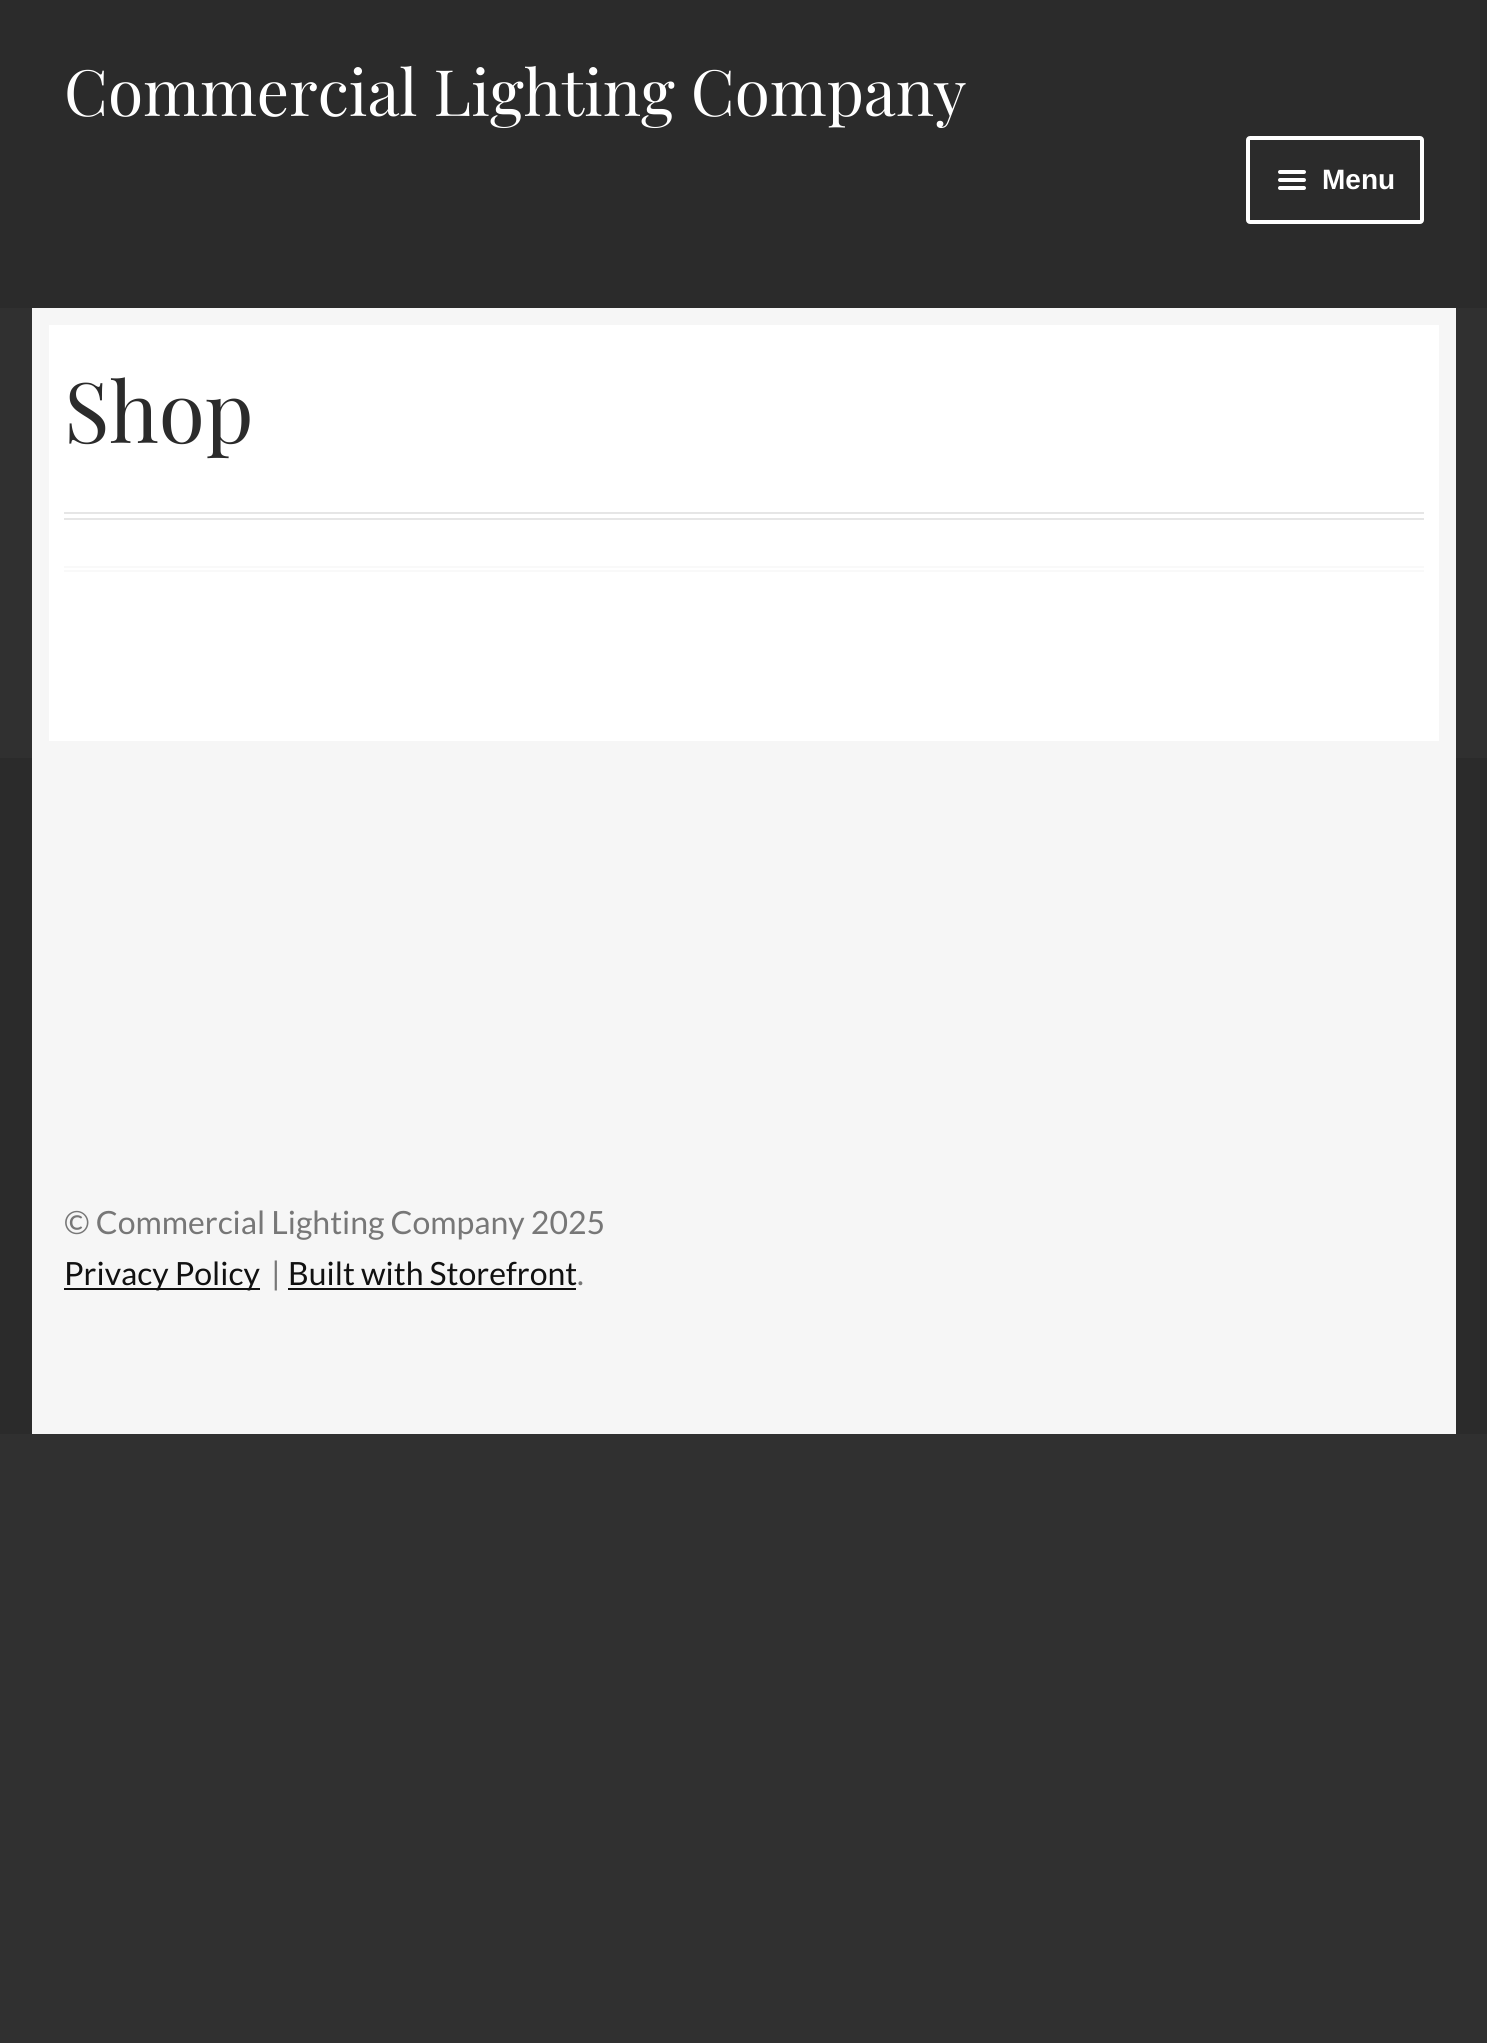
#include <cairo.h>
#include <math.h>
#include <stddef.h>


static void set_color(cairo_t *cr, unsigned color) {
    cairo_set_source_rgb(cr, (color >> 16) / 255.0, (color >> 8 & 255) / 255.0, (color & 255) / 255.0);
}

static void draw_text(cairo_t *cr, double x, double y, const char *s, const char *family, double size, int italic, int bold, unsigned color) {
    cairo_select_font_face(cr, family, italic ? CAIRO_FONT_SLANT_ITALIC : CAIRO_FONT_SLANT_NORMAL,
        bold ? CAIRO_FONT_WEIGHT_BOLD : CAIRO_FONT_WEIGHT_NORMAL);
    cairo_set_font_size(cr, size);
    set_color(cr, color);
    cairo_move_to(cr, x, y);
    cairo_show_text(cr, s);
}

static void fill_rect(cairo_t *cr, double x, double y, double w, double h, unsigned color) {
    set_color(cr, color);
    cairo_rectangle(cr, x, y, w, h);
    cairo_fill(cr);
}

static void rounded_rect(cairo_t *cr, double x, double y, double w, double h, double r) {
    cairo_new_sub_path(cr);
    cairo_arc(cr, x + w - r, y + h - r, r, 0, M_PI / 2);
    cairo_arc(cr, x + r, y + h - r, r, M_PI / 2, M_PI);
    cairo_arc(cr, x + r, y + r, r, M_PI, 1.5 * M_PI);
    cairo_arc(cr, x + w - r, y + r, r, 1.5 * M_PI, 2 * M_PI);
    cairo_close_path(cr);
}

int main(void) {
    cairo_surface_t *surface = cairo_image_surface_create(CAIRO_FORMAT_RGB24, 1487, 2043);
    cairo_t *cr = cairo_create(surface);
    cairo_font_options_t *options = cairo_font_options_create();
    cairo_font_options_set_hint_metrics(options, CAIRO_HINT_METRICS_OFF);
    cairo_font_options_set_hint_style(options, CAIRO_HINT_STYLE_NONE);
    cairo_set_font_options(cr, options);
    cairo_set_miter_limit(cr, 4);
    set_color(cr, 0x303030);
    cairo_paint(cr);
    fill_rect(cr, 0, 0, 1487, 308, 0x2B2B2B);
    draw_text(cr, 64, 116, "Commercial Lighting Company", "Playfair Display", 64, 0, 0, 0xFFFFFF);
    rounded_rect(cr, 1248, 138, 174, 84, 2);
    cairo_set_line_width(cr, 4);
    cairo_stroke(cr);
    rounded_rect(cr, 1278, 170, 28, 4, 2);
    cairo_fill(cr);
    rounded_rect(cr, 1278, 178, 28, 4, 2);
    cairo_fill(cr);
    draw_text(cr, 1322, 189, "Menu", "Liberation Sans", 28, 0, 1, 0xFFFFFF);
    rounded_rect(cr, 1278, 186, 28, 4, 2);
    cairo_fill(cr);
    cairo_rectangle(cr, 40.5, 316.5, 1407, 433);
    cairo_fill_preserve(cr);
    set_color(cr, 0xF6F6F6);
    cairo_set_line_width(cr, 17);
    cairo_stroke(cr);
    fill_rect(cr, 64, 566, 1360, 2, 0xF9F9F9);
    fill_rect(cr, 64, 570, 1360, 2, 0xF9F9F9);
    fill_rect(cr, 64, 512, 1360, 2, 0xE6E6E6);
    fill_rect(cr, 64, 518, 1360, 2, 0xE6E6E6);
    draw_text(cr, 64, 443, "Shop", "Playfair Display", 84, 0, 0, 0x2B2B2B);
    fill_rect(cr, 0, 758, 1487, 676, 0x2B2B2B);
    fill_rect(cr, 32, 758, 1424, 676, 0xF6F6F6);
    draw_text(cr, 64, 1234, "© Commercial Lighting Company 2025", "Lato", 32, 0, 0, 0x777777);
    fill_rect(cr, 64, 1288, 196, 2, 0x111111);
    draw_text(cr, 64, 1285, "Privacy Policy", "Lato", 32, 0, 0, 0x111111);
    draw_text(cr, 271, 1285, "|", "Lato", 32, 0, 0, 0x777777);
    draw_text(cr, 288, 1285, "Built with Storefront", "Lato", 32, 0, 0, 0x111111);
    fill_rect(cr, 288, 1288, 288, 2, 0x111111);
    draw_text(cr, 577, 1285, ".", "Lato", 32, 0, 0, 0x777777);
    cairo_surface_write_to_png(surface, "output.png");
    cairo_font_options_destroy(options);
    cairo_destroy(cr);
    cairo_surface_destroy(surface);
    return 0;
}
